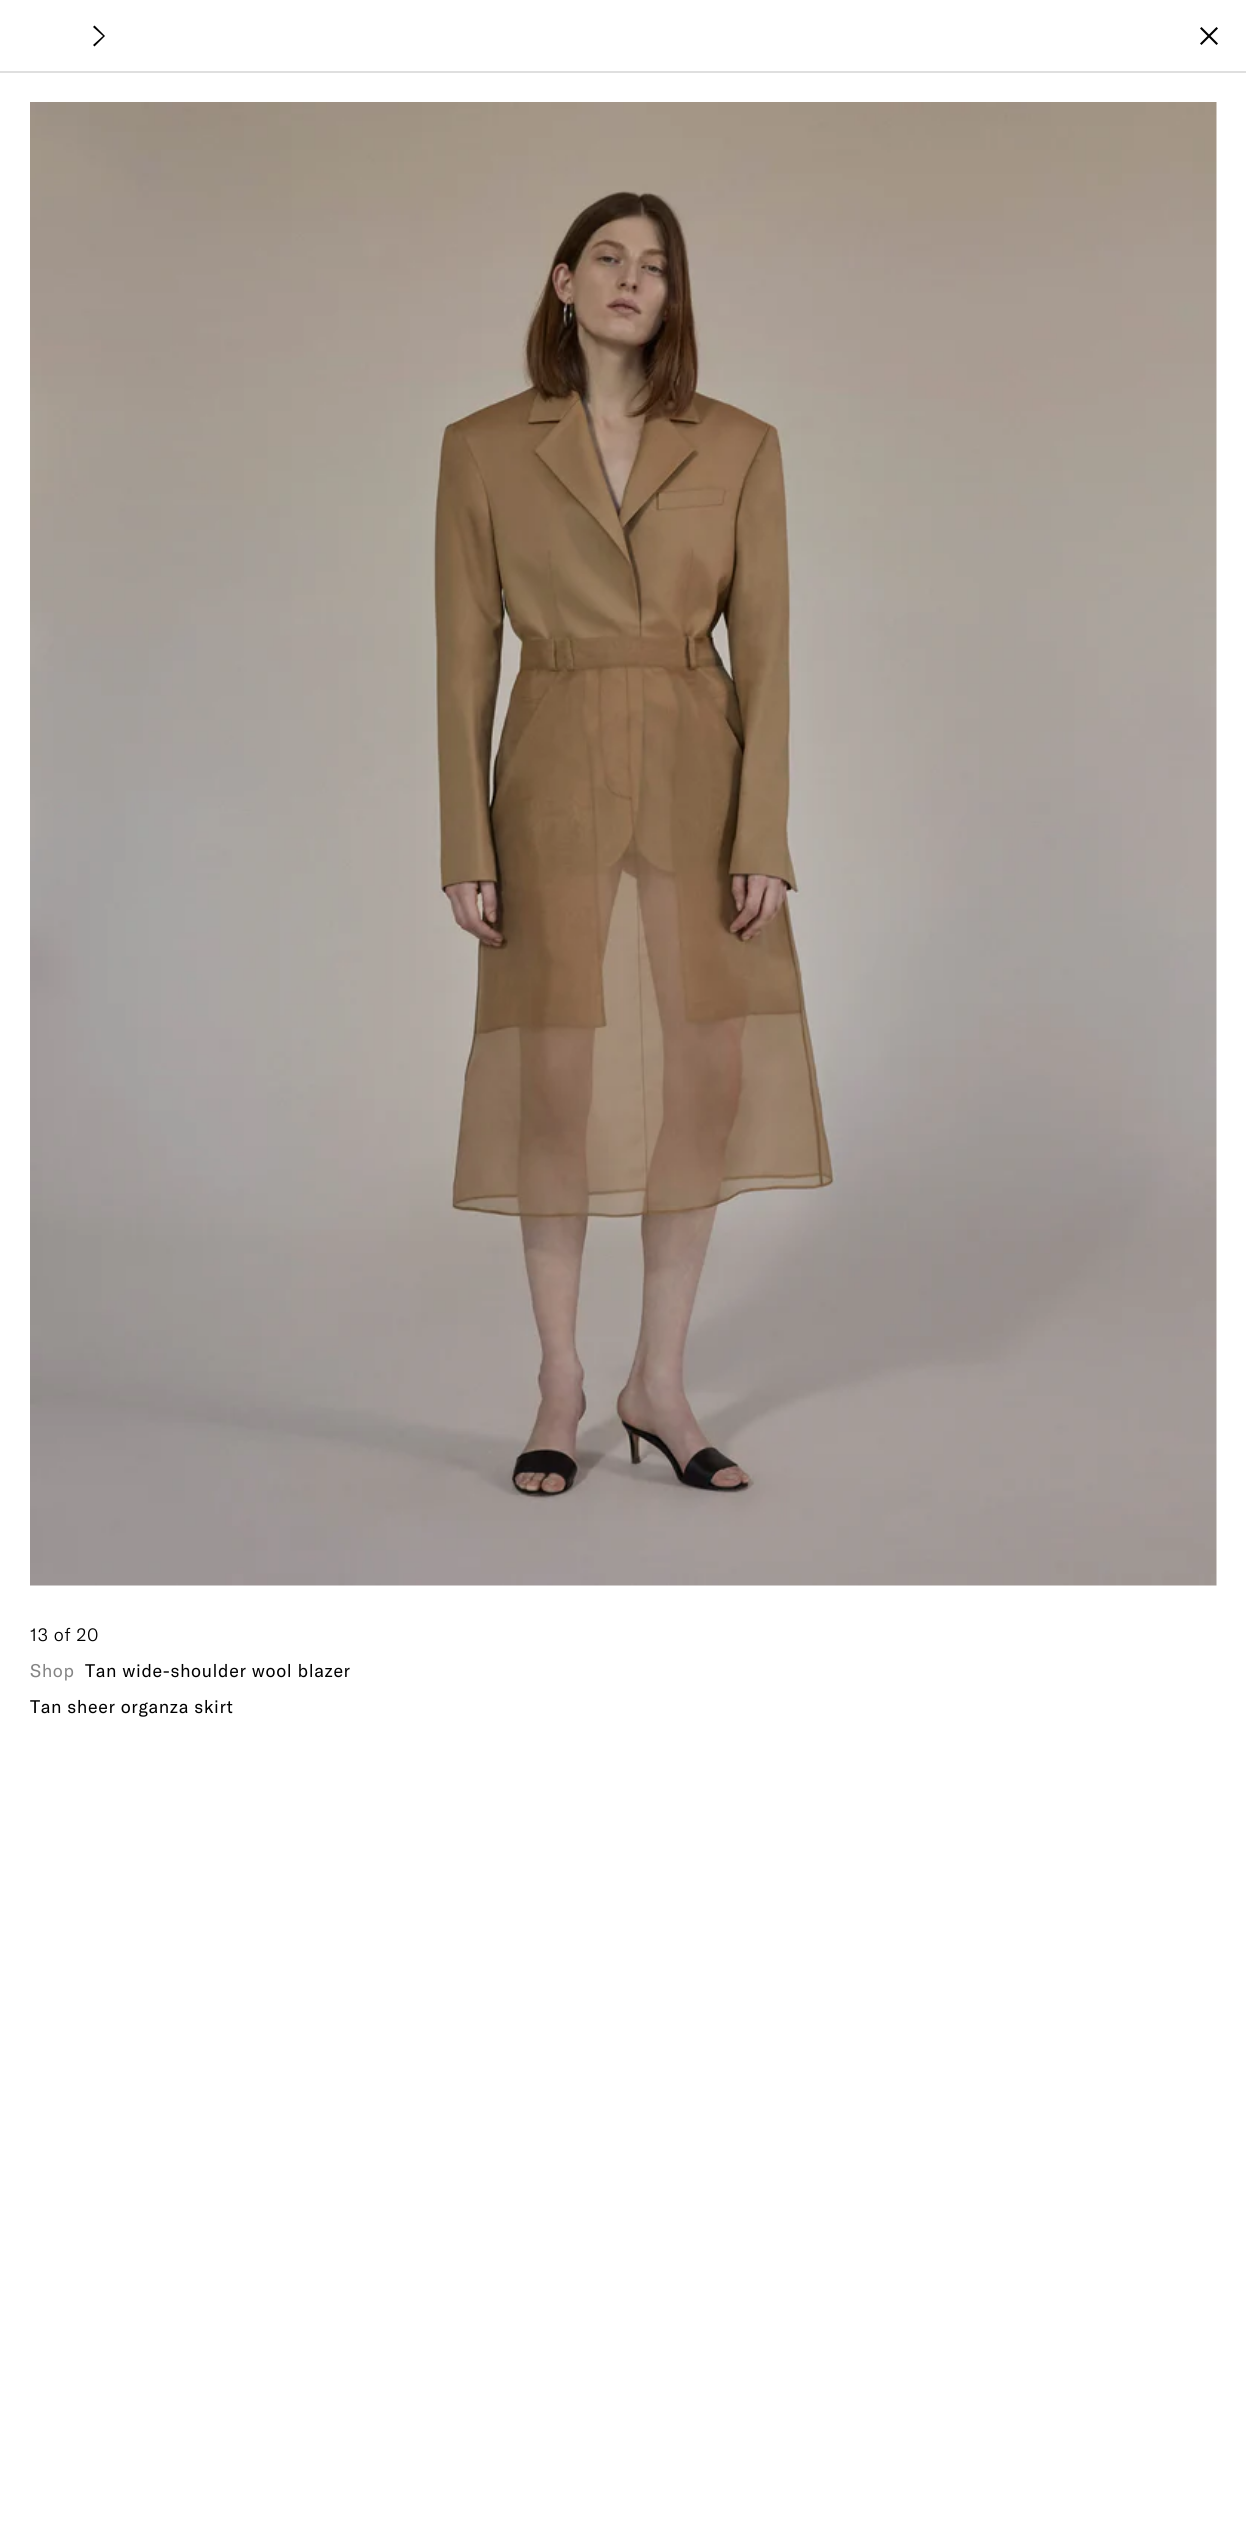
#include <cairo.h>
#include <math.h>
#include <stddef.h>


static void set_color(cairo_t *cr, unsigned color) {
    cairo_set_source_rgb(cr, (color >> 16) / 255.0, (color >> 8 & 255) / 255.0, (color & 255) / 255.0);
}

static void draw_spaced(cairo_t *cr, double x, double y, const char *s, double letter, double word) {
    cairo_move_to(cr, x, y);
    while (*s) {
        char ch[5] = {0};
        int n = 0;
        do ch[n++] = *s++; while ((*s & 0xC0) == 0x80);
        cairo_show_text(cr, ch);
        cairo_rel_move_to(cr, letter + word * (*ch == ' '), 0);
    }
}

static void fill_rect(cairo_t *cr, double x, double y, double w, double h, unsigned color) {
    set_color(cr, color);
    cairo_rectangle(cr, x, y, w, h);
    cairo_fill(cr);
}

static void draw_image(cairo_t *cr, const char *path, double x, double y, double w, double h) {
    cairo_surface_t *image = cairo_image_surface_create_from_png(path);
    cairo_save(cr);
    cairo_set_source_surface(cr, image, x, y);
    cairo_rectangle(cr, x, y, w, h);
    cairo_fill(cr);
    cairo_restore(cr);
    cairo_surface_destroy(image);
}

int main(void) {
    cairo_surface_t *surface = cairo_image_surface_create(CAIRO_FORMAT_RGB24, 1246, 2524);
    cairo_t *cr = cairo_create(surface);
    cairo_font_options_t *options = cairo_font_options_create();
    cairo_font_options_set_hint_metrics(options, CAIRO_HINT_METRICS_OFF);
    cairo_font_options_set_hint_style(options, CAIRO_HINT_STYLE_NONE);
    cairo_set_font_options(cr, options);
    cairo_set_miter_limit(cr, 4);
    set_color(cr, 0xFFFFFF);
    cairo_paint(cr);
    fill_rect(cr, 0, 71, 1246, 2, 0xDFDFDF);
    set_color(cr, 0x000000);
    cairo_set_fill_rule(cr, CAIRO_FILL_RULE_EVEN_ODD);
    cairo_new_path(cr);
    cairo_move_to(cr, 94.5, 25.5);
    cairo_line_to(cr, 93, 27);
    cairo_line_to(cr, 103, 36);
    cairo_line_to(cr, 93, 45);
    cairo_line_to(cr, 94.5, 46.5);
    cairo_line_to(cr, 105, 36);
    cairo_close_path(cr);
    cairo_fill(cr);
    draw_image(cr, "assets/img1.png", 1200, 27, 18, 18);
    draw_image(cr, "assets/img2.png", 30, 102, 1187, 1484);
    cairo_select_font_face(cr, "GT America Light", CAIRO_FONT_SLANT_NORMAL, CAIRO_FONT_WEIGHT_NORMAL);
    cairo_set_font_size(cr, 18);
    draw_spaced(cr, 30, 1641, "13 of 20", 0.6, 0);
    cairo_select_font_face(cr, "GT America", CAIRO_FONT_SLANT_NORMAL, CAIRO_FONT_WEIGHT_NORMAL);
    set_color(cr, 0x848484);
    draw_spaced(cr, 30, 1677, "Shop", 0.6, 0);
    set_color(cr, 0x000000);
    draw_spaced(cr, 85, 1677, "Tan wide-shoulder wool blazer", 0.6, 0);
    draw_spaced(cr, 30, 1713, "Tan sheer organza skirt", 0.6, 0);
    cairo_surface_write_to_png(surface, "output.png");
    cairo_font_options_destroy(options);
    cairo_destroy(cr);
    cairo_surface_destroy(surface);
    return 0;
}
